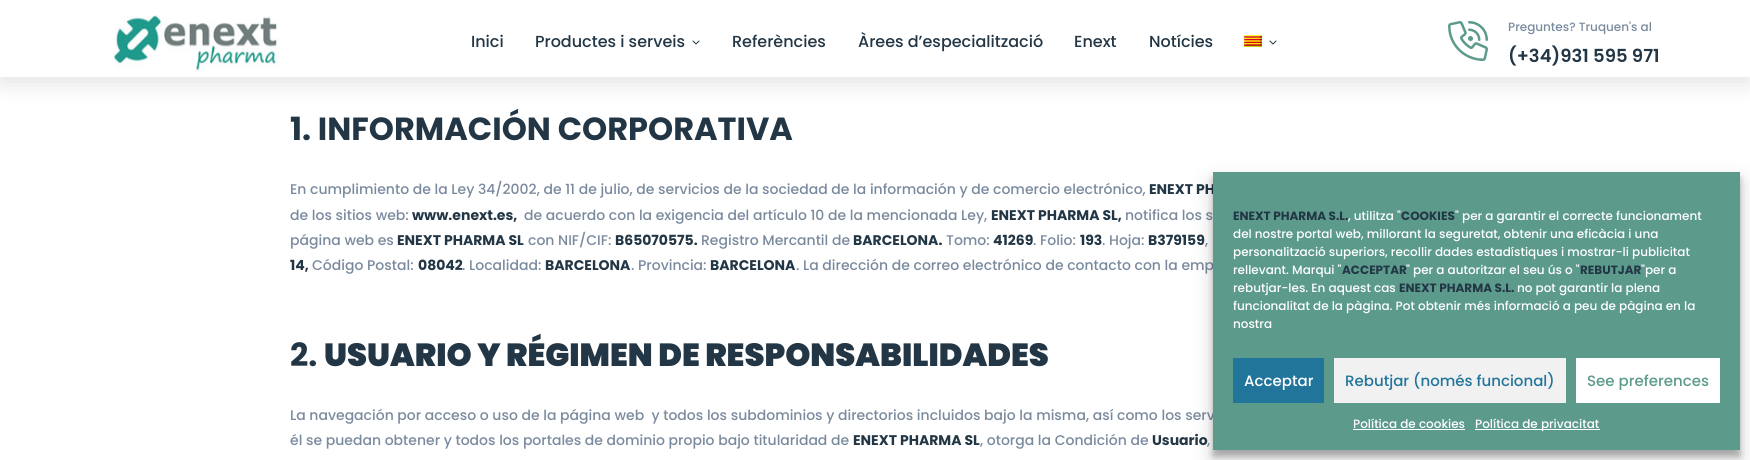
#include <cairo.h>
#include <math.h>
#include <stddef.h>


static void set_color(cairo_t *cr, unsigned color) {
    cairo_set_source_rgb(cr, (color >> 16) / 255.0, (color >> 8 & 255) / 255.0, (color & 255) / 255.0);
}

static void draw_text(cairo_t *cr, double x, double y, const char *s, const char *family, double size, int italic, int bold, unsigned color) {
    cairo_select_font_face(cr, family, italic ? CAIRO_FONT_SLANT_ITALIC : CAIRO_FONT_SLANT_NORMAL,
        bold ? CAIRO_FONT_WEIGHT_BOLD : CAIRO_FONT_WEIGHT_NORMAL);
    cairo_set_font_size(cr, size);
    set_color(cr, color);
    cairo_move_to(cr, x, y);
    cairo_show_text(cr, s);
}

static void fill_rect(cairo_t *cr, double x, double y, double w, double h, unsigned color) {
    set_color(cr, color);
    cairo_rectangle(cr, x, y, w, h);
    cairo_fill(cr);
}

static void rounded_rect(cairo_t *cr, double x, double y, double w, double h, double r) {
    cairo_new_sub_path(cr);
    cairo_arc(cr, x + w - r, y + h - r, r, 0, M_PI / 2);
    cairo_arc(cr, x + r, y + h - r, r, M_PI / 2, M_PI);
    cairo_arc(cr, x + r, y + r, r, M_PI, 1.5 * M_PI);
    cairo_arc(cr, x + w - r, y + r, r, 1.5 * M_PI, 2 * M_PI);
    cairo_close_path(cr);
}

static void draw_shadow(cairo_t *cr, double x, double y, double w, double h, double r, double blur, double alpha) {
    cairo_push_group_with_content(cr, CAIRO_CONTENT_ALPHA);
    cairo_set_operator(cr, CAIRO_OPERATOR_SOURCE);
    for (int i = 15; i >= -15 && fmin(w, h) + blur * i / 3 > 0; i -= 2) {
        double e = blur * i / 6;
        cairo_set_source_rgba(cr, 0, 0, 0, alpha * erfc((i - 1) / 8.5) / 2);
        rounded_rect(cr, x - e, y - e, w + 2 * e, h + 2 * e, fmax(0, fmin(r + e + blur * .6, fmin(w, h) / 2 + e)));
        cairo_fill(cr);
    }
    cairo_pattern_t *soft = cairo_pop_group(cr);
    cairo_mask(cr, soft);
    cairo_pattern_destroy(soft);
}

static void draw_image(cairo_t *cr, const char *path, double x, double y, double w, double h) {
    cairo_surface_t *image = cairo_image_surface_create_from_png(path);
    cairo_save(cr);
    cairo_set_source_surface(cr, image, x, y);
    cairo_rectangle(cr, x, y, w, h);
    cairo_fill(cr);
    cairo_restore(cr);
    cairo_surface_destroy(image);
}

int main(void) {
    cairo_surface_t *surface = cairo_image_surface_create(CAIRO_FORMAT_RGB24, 1750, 460);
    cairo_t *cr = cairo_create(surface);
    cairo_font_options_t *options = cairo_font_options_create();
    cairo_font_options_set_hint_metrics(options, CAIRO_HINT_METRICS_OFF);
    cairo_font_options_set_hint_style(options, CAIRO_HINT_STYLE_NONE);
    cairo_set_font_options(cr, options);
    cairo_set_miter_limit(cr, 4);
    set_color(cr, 0xFFFFFF);
    cairo_paint(cr);
    set_color(cr, 0x000000);
    draw_shadow(cr, 0, 8, 1750, 77, 0, 10, 0.1);
    fill_rect(cr, 0, 0, 1750, 77, 0xFFFFFF);
    draw_image(cr, "assets/img1.png", 110, 15, 168, 56);
    draw_text(cr, 471, 47, "Inici", "Poppins Medium", 16, 0, 0, 0x223645);
    draw_text(cr, 535, 47, "Productes i serveis", "Poppins Medium", 16, 0, 0, 0x223645);
    draw_image(cr, "assets/img2.png", 692, 40, 8, 5);
    draw_text(cr, 732, 47, "Referències", "Poppins Medium", 16, 0, 0, 0x223645);
    draw_text(cr, 858, 47, "Àrees d’especialització", "Poppins Medium", 16, 0, 0, 0x223645);
    draw_text(cr, 1074, 47, "Enext", "Poppins Medium", 16, 0, 0, 0x223645);
    draw_text(cr, 1149, 47, "Notícies", "Poppins Medium", 16, 0, 0, 0x223645);
    draw_image(cr, "assets/img3.png", 1244, 35, 18, 12);
    draw_image(cr, "assets/img2.png", 1269, 40, 8, 5);
    draw_image(cr, "assets/img4.png", 1448, 21, 40, 40);
    draw_text(cr, 1508, 31, "Preguntes? Truquen's al", "Poppins Medium", 12, 0, 0, 0x7A8A9E);
    draw_text(cr, 1508, 62, "(+34)931 595 971", "Poppins SemiBold", 18, 0, 0, 0x223645);
    draw_text(cr, 290, 140, "1. INFORMACIÓN CORPORATIVA", "Poppins", 32, 0, 1, 0x223645);
    draw_text(cr, 290, 194, "En cumplimiento de la Ley 34/2002, de 11 de julio, de servicios de la sociedad de la información y de comercio electrónico,", "Poppins Medium", 14, 0, 0, 0x7A8A9E);
    draw_text(cr, 1149, 194, "ENEXT PH", "Poppins", 14, 0, 1, 0x223645);
    draw_text(cr, 290, 220, "de los sitios web:", "Poppins Medium", 14, 0, 0, 0x7A8A9E);
    draw_text(cr, 412, 220, "www.enext.es,", "Poppins", 14, 0, 1, 0x223645);
    draw_text(cr, 524, 220, "de acuerdo con la exigencia del artículo 10 de la mencionada Ley,", "Poppins Medium", 14, 0, 0, 0x7A8A9E);
    draw_text(cr, 991, 220, "ENEXT PHARMA SL,", "Poppins", 14, 0, 1, 0x223645);
    draw_text(cr, 1125, 220, "notifica los s", "Poppins Medium", 14, 0, 0, 0x7A8A9E);
    draw_text(cr, 290, 245, "página web es", "Poppins Medium", 14, 0, 0, 0x7A8A9E);
    draw_text(cr, 397, 245, "ENEXT PHARMA SL", "Poppins", 14, 0, 1, 0x223645);
    draw_text(cr, 528, 245, "con NIF/CIF:", "Poppins Medium", 14, 0, 0, 0x7A8A9E);
    draw_text(cr, 615, 245, "B65070575.", "Poppins", 14, 0, 1, 0x223645);
    draw_text(cr, 701, 245, "Registro Mercantil de", "Poppins Medium", 14, 0, 0, 0x7A8A9E);
    draw_text(cr, 853, 245, "BARCELONA.", "Poppins", 14, 0, 1, 0x223645);
    draw_text(cr, 946, 245, "Tomo:", "Poppins Medium", 14, 0, 0, 0x7A8A9E);
    draw_text(cr, 993, 245, "41269", "Poppins", 14, 0, 1, 0x223645);
    draw_text(cr, 1033, 245, ". Folio:", "Poppins Medium", 14, 0, 0, 0x7A8A9E);
    draw_text(cr, 1080, 245, "193", "Poppins", 14, 0, 1, 0x223645);
    draw_text(cr, 1102, 245, ". Hoja:", "Poppins Medium", 14, 0, 0, 0x7A8A9E);
    draw_text(cr, 1148, 245, "B379159", "Poppins", 14, 0, 1, 0x223645);
    draw_text(cr, 1205, 245, ",", "Poppins Medium", 14, 0, 0, 0x7A8A9E);
    draw_text(cr, 290, 270, "14,", "Poppins", 14, 0, 1, 0x223645);
    draw_text(cr, 312, 270, "Código Postal:", "Poppins Medium", 14, 0, 0, 0x7A8A9E);
    draw_text(cr, 418, 270, "08042", "Poppins", 14, 0, 1, 0x223645);
    draw_text(cr, 462, 270, ". Localidad:", "Poppins Medium", 14, 0, 0, 0x7A8A9E);
    draw_text(cr, 545, 270, "BARCELONA", "Poppins", 14, 0, 1, 0x223645);
    draw_text(cr, 631, 270, ". Provincia:", "Poppins Medium", 14, 0, 0, 0x7A8A9E);
    draw_text(cr, 710, 270, "BARCELONA", "Poppins", 14, 0, 1, 0x223645);
    draw_text(cr, 796, 270, ". La dirección de correo electrónico de contacto con la emp", "Poppins Medium", 14, 0, 0, 0x7A8A9E);
    draw_text(cr, 290, 366, "2.", "Poppins", 32, 0, 1, 0x223645);
    draw_text(cr, 324, 366, "USUARIO Y RÉGIMEN DE RESPONSABILIDADES", "Poppins Black", 32, 0, 0, 0x223645);
    draw_text(cr, 290, 420, "La navegación por acceso o uso de la página web  y todos los subdominios y directorios incluidos bajo la misma, así como los serv", "Poppins Medium", 14, 0, 0, 0x7A8A9E);
    draw_text(cr, 290, 445, "él se puedan obtener y todos los portales de dominio propio bajo titularidad de", "Poppins Medium", 14, 0, 0, 0x7A8A9E);
    draw_text(cr, 853, 445, "ENEXT PHARMA SL", "Poppins", 14, 0, 1, 0x223645);
    draw_text(cr, 980, 445, ", otorga la Condición de", "Poppins Medium", 14, 0, 0, 0x7A8A9E);
    draw_text(cr, 1152, 445, "Usuario", "Poppins", 14, 0, 1, 0x223645);
    draw_text(cr, 1207, 445, ",", "Poppins Medium", 14, 0, 0, 0x7A8A9E);
    set_color(cr, 0x000000);
    draw_shadow(cr, 1213, 178, 527, 278, 0, 3, 0.23);
    draw_shadow(cr, 1213, 182, 527, 278, 0, 10, 0.19);
    fill_rect(cr, 1213, 172, 527, 278, 0x5C9A8C);
    draw_text(cr, 1233, 220, "ENEXT PHARMA S.L.", "Poppins", 12, 0, 1, 0x223645);
    draw_text(cr, 1348, 220, ", utilitza \"", "Poppins Medium", 12, 0, 0, 0xFFFFFF);
    draw_text(cr, 1401, 220, "COOKIES", "Poppins", 12, 0, 1, 0x223645);
    draw_text(cr, 1455, 220, "\" per a garantir el correcte funcionament", "Poppins Medium", 12, 0, 0, 0xFFFFFF);
    draw_text(cr, 1233, 238, "del nostre portal web, millorant la seguretat, obtenir una eficàcia i una", "Poppins Medium", 12, 0, 0, 0xFFFFFF);
    draw_text(cr, 1233, 256, "personalització superiors, recollir dades estadístiques i mostrar-li publicitat", "Poppins Medium", 12, 0, 0, 0xFFFFFF);
    draw_text(cr, 1233, 274, "rellevant. Marqui \"", "Poppins Medium", 12, 0, 0, 0xFFFFFF);
    draw_text(cr, 1342, 274, "ACCEPTAR", "Poppins", 12, 0, 1, 0x223645);
    draw_text(cr, 1406, 274, "\" per a autoritzar el seu ús o \"", "Poppins Medium", 12, 0, 0, 0xFFFFFF);
    draw_text(cr, 1580, 274, "REBUTJAR", "Poppins", 12, 0, 1, 0x223645);
    draw_text(cr, 1641, 274, "\"per a", "Poppins Medium", 12, 0, 0, 0xFFFFFF);
    draw_text(cr, 1233, 292, "rebutjar-les. En aquest cas", "Poppins Medium", 12, 0, 0, 0xFFFFFF);
    draw_text(cr, 1399, 292, "ENEXT PHARMA S.L.", "Poppins", 12, 0, 1, 0x223645);
    draw_text(cr, 1517, 292, "no pot garantir la plena", "Poppins Medium", 12, 0, 0, 0xFFFFFF);
    draw_text(cr, 1233, 310, "funcionalitat de la pàgina. Pot obtenir més informació a peu de pàgina en la", "Poppins Medium", 12, 0, 0, 0xFFFFFF);
    draw_text(cr, 1233, 328, "nostra", "Poppins Medium", 12, 0, 0, 0xFFFFFF);
    fill_rect(cr, 1233, 358, 91, 45, 0x21759B);
    draw_text(cr, 1244, 386, "Acceptar", "Poppins Medium", 15, 0, 0, 0xFFFFFF);
    fill_rect(cr, 1334, 358, 232, 45, 0xF1F1F1);
    draw_text(cr, 1345, 386, "Rebutjar (només funcional)", "Poppins Medium", 15, 0, 0, 0x21759B);
    fill_rect(cr, 1576, 358, 144, 45, 0xFFFFFF);
    draw_text(cr, 1587, 386, "See preferences", "Poppins Medium", 15, 0, 0, 0x5C9A8C);
    draw_text(cr, 1353, 428, "Política de cookies", "Poppins Medium", 12, 0, 0, 0xFFFFFF);
    fill_rect(cr, 1353, 429, 112, 1, 0xFFFFFF);
    fill_rect(cr, 1475, 429, 125, 1, 0xFFFFFF);
    draw_text(cr, 1475, 428, "Política de privacitat", "Poppins Medium", 12, 0, 0, 0xFFFFFF);
    cairo_surface_write_to_png(surface, "output.png");
    cairo_font_options_destroy(options);
    cairo_destroy(cr);
    cairo_surface_destroy(surface);
    return 0;
}
